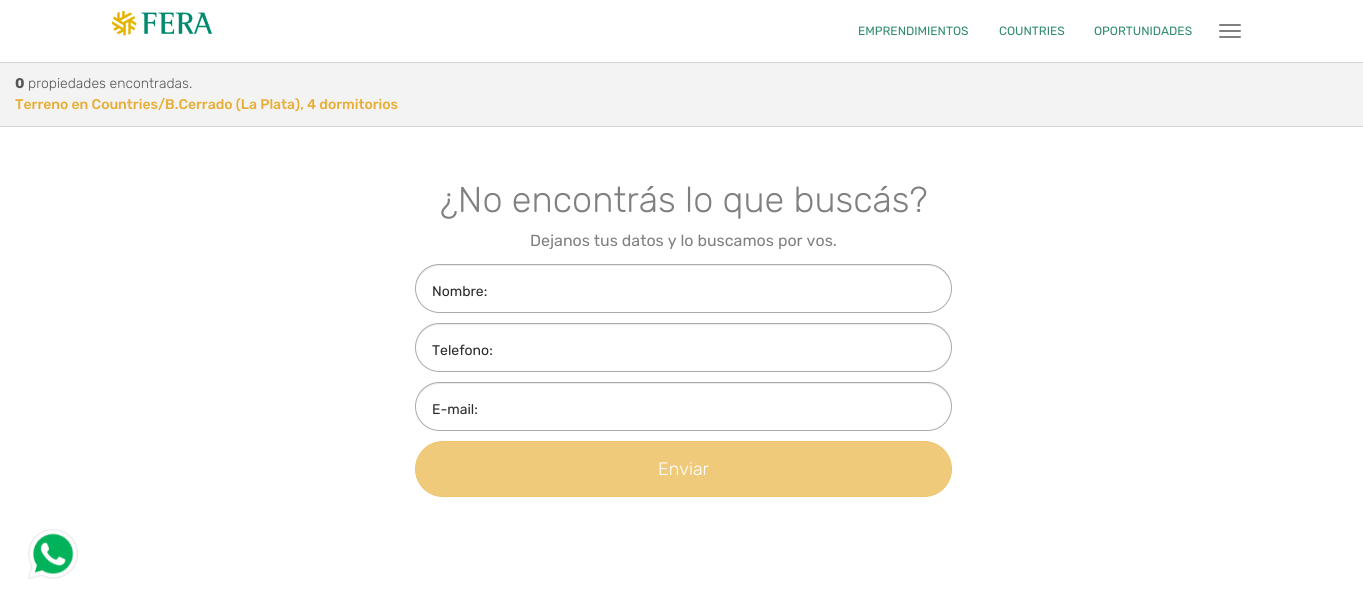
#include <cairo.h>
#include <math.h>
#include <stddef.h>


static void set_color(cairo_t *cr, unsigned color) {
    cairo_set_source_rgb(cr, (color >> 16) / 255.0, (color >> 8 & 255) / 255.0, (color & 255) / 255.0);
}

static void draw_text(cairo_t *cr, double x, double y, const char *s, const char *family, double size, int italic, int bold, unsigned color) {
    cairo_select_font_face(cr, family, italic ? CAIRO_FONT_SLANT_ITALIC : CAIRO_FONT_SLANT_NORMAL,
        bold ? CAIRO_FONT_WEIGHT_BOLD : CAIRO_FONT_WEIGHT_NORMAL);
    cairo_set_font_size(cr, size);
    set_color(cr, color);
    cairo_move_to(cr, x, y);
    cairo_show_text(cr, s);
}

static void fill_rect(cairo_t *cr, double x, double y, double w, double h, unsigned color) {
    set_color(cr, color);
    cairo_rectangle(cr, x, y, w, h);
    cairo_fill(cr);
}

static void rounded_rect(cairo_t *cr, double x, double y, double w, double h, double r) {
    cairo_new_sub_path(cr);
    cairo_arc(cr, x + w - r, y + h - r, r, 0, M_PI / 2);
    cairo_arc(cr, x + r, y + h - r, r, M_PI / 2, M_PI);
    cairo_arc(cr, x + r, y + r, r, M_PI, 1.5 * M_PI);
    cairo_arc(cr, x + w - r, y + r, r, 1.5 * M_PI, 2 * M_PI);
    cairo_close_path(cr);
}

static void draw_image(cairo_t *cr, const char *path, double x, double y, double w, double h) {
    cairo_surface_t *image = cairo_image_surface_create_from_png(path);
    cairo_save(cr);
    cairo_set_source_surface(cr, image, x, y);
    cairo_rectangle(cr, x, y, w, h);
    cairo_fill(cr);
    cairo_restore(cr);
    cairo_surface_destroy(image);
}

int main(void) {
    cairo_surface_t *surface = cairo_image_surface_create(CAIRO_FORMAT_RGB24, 1363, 602);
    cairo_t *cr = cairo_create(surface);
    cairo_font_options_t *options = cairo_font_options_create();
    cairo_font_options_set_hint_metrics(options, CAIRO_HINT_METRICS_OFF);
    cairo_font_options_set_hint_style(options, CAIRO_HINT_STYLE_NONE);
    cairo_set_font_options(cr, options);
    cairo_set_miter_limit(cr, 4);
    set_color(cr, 0xFFFFFF);
    cairo_paint(cr);
    draw_image(cr, "assets/img1.png", 112, 11, 100, 25);
    draw_text(cr, 858, 35, "EMPRENDIMIENTOS", "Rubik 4 Light", 12, 0, 0, 0x318B70);
    draw_text(cr, 999, 35, "COUNTRIES", "Rubik 4 Light", 12, 0, 0, 0x318B70);
    draw_text(cr, 1094, 35, "OPORTUNIDADES", "Rubik 4 Light", 12, 0, 0, 0x318B70);
    set_color(cr, 0x808080);
    rounded_rect(cr, 1219, 24, 22, 2, 1);
    cairo_fill(cr);
    rounded_rect(cr, 1219, 30, 22, 2, 1);
    cairo_fill(cr);
    rounded_rect(cr, 1219, 36, 22, 2, 1);
    cairo_fill(cr);
    fill_rect(cr, 0, 63, 1363, 63, 0xF3F3F3);
    fill_rect(cr, 0, 62, 1363, 1, 0xD4D4D4);
    fill_rect(cr, 0, 126, 1363, 1, 0xD4D4D4);
    draw_text(cr, 15, 88, "0", "Rubik Light", 14, 0, 0, 0x555555);
    draw_text(cr, 28, 88, "propiedades encontradas.", "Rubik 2 Light", 14, 0, 0, 0x555555);
    draw_text(cr, 15, 109, "Terreno en Countries/B.Cerrado (La Plata), 4 dormitorios", "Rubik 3 Light", 14, 0, 0, 0xE8AD34);
    draw_text(cr, 440, 212, "¿No encontrás lo que buscás?", "Rubik 2 Light", 36, 0, 0, 0x808080);
    draw_text(cr, 530, 246, "Dejanos tus datos y lo buscamos por vos.", "Rubik 4 Light", 16, 0, 0, 0x808080);
    set_color(cr, 0xECECEC);
    cairo_new_path(cr);
    cairo_move_to(cr, 440, 266);
    cairo_line_to(cr, 928, 266);
    cairo_curve_to(cr, 940, 266, 951, 277, 951, 289);
    cairo_curve_to(cr, 951, 276, 941, 265, 928, 265);
    cairo_line_to(cr, 440, 265);
    cairo_curve_to(cr, 426, 265, 416, 276, 416, 289);
    cairo_curve_to(cr, 416, 277, 427, 266, 440, 266);
    cairo_close_path(cr);
    cairo_fill(cr);
    rounded_rect(cr, 415.5, 264.5, 536, 48, 24);
    set_color(cr, 0xAAAAAA);
    cairo_set_line_width(cr, 1);
    cairo_stroke(cr);
    draw_text(cr, 432, 296, "Nombre:", "Rubik 4 Light", 14, 0, 0, 0x2A2A2A);
    set_color(cr, 0xECECEC);
    cairo_new_path(cr);
    cairo_move_to(cr, 440, 325);
    cairo_line_to(cr, 928, 325);
    cairo_curve_to(cr, 940, 325, 951, 336, 951, 348);
    cairo_curve_to(cr, 951, 335, 940, 324, 928, 324);
    cairo_line_to(cr, 440, 324);
    cairo_curve_to(cr, 427, 324, 416, 335, 416, 348);
    cairo_curve_to(cr, 416, 336, 427, 325, 440, 325);
    cairo_close_path(cr);
    cairo_fill(cr);
    rounded_rect(cr, 415.5, 323.5, 536, 48, 24);
    set_color(cr, 0xAAAAAA);
    cairo_stroke(cr);
    draw_text(cr, 432, 355, "Telefono:", "Rubik 4 Light", 14, 0, 0, 0x2A2A2A);
    set_color(cr, 0xECECEC);
    cairo_new_path(cr);
    cairo_move_to(cr, 440, 384);
    cairo_line_to(cr, 928, 384);
    cairo_curve_to(cr, 940, 384, 951, 395, 951, 407);
    cairo_curve_to(cr, 951, 394, 941, 383, 928, 383);
    cairo_line_to(cr, 440, 383);
    cairo_curve_to(cr, 426, 383, 416, 394, 416, 407);
    cairo_curve_to(cr, 416, 395, 427, 384, 440, 384);
    cairo_close_path(cr);
    cairo_fill(cr);
    rounded_rect(cr, 415.5, 382.5, 536, 48, 24);
    set_color(cr, 0xAAAAAA);
    cairo_stroke(cr);
    draw_text(cr, 432, 414, "E-mail:", "Rubik 4 Light", 14, 0, 0, 0x2A2A2A);
    set_color(cr, 0xF0CA7B);
    rounded_rect(cr, 415.5, 441.5, 536, 55, 27.5);
    cairo_fill_preserve(cr);
    set_color(cr, 0xEEC46C);
    cairo_stroke(cr);
    draw_text(cr, 658, 475, "Enviar", "Rubik 2 Light", 18, 0, 0, 0xFFFFFF);
    draw_image(cr, "assets/img2.png", 28, 529, 50, 50);
    cairo_surface_write_to_png(surface, "output.png");
    cairo_font_options_destroy(options);
    cairo_destroy(cr);
    cairo_surface_destroy(surface);
    return 0;
}
